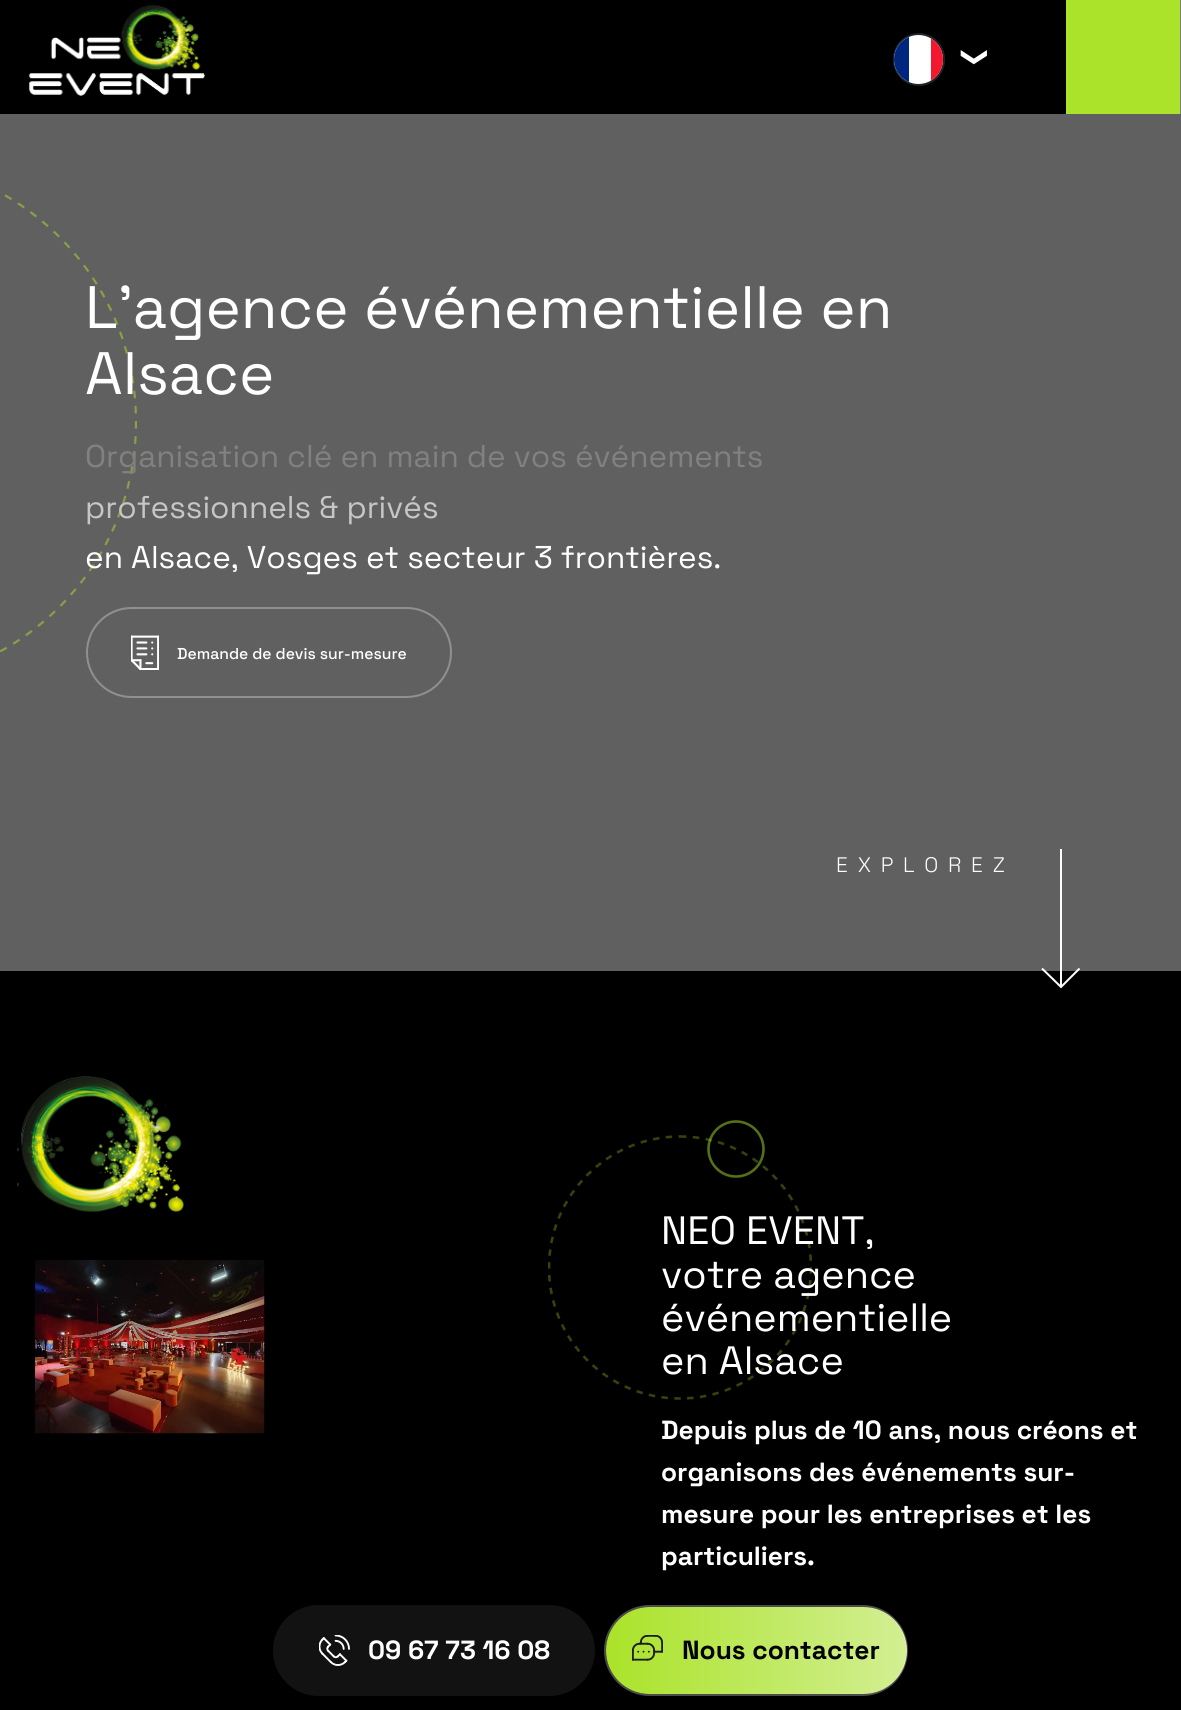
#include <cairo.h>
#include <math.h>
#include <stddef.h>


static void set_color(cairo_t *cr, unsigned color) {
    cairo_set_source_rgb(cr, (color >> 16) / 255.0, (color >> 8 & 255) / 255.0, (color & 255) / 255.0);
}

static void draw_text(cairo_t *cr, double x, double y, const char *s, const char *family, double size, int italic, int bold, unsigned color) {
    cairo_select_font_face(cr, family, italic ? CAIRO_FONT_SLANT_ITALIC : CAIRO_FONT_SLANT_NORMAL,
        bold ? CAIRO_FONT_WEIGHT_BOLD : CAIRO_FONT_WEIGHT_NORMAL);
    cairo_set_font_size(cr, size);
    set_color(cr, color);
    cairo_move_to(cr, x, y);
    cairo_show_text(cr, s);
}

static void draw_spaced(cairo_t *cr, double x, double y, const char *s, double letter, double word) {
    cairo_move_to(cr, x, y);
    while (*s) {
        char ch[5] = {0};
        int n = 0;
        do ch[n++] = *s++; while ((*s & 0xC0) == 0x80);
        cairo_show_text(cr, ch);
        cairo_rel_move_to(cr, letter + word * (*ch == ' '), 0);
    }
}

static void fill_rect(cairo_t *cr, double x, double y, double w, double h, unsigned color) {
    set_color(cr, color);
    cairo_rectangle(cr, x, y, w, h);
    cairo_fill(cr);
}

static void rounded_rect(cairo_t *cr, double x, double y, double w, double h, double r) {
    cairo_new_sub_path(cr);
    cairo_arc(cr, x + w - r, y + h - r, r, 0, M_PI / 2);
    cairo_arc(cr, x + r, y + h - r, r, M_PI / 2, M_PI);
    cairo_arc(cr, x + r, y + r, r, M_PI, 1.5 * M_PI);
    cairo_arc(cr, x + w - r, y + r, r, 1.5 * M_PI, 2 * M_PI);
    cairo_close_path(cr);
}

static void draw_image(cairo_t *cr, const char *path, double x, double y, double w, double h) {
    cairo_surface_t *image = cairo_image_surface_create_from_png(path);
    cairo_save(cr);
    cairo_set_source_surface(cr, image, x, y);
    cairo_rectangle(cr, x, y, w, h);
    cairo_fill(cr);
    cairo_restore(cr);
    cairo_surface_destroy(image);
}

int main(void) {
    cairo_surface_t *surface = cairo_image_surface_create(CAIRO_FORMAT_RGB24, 1181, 1710);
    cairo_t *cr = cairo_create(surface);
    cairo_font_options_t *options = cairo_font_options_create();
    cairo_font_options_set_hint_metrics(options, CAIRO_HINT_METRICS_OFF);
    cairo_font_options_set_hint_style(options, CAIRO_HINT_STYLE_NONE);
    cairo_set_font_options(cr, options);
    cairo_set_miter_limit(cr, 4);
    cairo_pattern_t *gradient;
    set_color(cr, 0x000000);
    cairo_paint(cr);
    draw_image(cr, "assets/img1.png", 28, 4, 177, 92);
    rounded_rect(cr, 894, 34, 50, 51, 25);
    set_color(cr, 0x1D2327);
    cairo_stroke(cr);
    set_color(cr, 0xFFFFFF);
    cairo_arc(cr, 918.5, 59.5, 24.5, 0, 2 * M_PI);
    cairo_fill(cr);
    cairo_save(cr);
    rounded_rect(cr, 894, 35, 49, 49, 24.5);
    cairo_clip(cr);
    fill_rect(cr, 894, 37, 15, 45, 0x00267F);
    fill_rect(cr, 931, 38, 12, 43, 0xF31830);
    cairo_restore(cr);
    cairo_save(cr);
    cairo_translate(cr, 967, 46);
    cairo_rotate(cr, 90 * M_PI / 180);
    draw_text(cr, 0, 0, "❯", "DejaVu Sans", 26.25, 0, 0, 0xFFFFFF);
    cairo_restore(cr);
    fill_rect(cr, 1180, 0, 1, 114, 0x808080);
    fill_rect(cr, 1066, 0, 114, 114, 0xAAE329);
    fill_rect(cr, 0, 114, 1181, 857, 0x606060);
    cairo_save(cr);
    cairo_rectangle(cr, 0, 161, 137, 523);
    cairo_clip(cr);
    cairo_new_path(cr);
    cairo_move_to(cr, -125.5, 160.5);
    cairo_curve_to(cr, 19, 160.5, 136, 277.5, 136, 422);
    cairo_curve_to(cr, 136, 566.5, 19, 683.5, -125.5, 683.5);
    cairo_curve_to(cr, -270, 683.5, -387, 566.5, -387, 422);
    cairo_curve_to(cr, -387, 277.5, -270, 160.5, -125.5, 160.5);
    cairo_close_path(cr);
    set_color(cr, 0x85A245);
    cairo_set_line_width(cr, 2.2);
    cairo_set_dash(cr, (double[]){7.59, 7.59}, 2, 0);
    cairo_stroke(cr);
    cairo_restore(cr);
    draw_text(cr, 85, 328, "L’agence événementielle en", "Space Grotesk", 59.8, 0, 0, 0xFFFFFF);
    draw_text(cr, 85, 394, "Alsace", "Space Grotesk", 59.8, 0, 0, 0xFFFFFF);
    draw_text(cr, 85, 467, "Organisation clé en main de vos événements", "Space Grotesk", 31.5, 0, 0, 0x818181);
    draw_text(cr, 85, 518, "professionnels & privés", "Space Grotesk", 31.5, 0, 0, 0xC6C6C6);
    draw_text(cr, 85, 568, "en Alsace, Vosges et secteur 3 frontières.", "Space Grotesk", 31.5, 0, 0, 0xFFFFFF);
    rounded_rect(cr, 87, 608, 364, 89, 44.5);
    set_color(cr, 0x909090);
    cairo_stroke(cr);
    draw_image(cr, "assets/img2.png", 131, 635, 28, 35);
    draw_text(cr, 177, 659, "Demande de devis sur-mesure", "Space Grotesk Medium", 15.75, 0, 0, 0xFFFFFF);
    cairo_select_font_face(cr, "Space Grotesk Light", CAIRO_FONT_SLANT_NORMAL, CAIRO_FONT_WEIGHT_NORMAL);
    cairo_set_font_size(cr, 21);
    draw_spaced(cr, 836, 872, "EXPLOREZ", 9.75, 0);
    fill_rect(cr, 1060, 849, 2, 137, 0xFFFFFF);
    cairo_new_path(cr);
    cairo_move_to(cr, 1042, 968.5);
    cairo_line_to(cr, 1061, 987);
    cairo_line_to(cr, 1079.5, 968.5);
    cairo_stroke(cr);
    draw_image(cr, "assets/img3.png", 17, 1076, 167, 137);
    draw_image(cr, "assets/img4.png", 35, 1260, 230, 174);
    cairo_save(cr);
    cairo_rectangle(cr, 548, 1120, 264, 280);
    cairo_clip(cr);
    cairo_new_path(cr);
    cairo_move_to(cr, 680, 1136.5);
    cairo_curve_to(cr, 752.5, 1136.5, 811, 1195.5, 811, 1267.5);
    cairo_curve_to(cr, 811, 1340, 752.5, 1398.5, 680, 1398.5);
    cairo_curve_to(cr, 607.5, 1398.5, 549, 1340, 549, 1267.5);
    cairo_curve_to(cr, 549, 1195.5, 607.5, 1136.5, 680, 1136.5);
    cairo_close_path(cr);
    set_color(cr, 0x33440C);
    cairo_set_line_width(cr, 2.6);
    cairo_set_dash(cr, (double[]){6.42, 6.42}, 2, 0);
    cairo_stroke(cr);
    cairo_restore(cr);
    cairo_arc(cr, 736, 1149, 27.5, 0, 2 * M_PI);
    cairo_set_source_rgba(cr, 0.667, 0.89, 0.161, 0.5);
    cairo_set_line_width(cr, 2.6);
    cairo_stroke(cr);
    draw_text(cr, 661, 1244, "NEO EVENT,", "Space Grotesk", 39.5, 0, 0, 0xFFFFFF);
    draw_text(cr, 661, 1288, "votre agence", "Space Grotesk", 39.5, 0, 0, 0xFFFFFF);
    draw_text(cr, 661, 1331, "événementielle", "Space Grotesk", 39.5, 0, 0, 0xFFFFFF);
    draw_text(cr, 661, 1374, "en Alsace", "Space Grotesk", 39.5, 0, 0, 0xFFFFFF);
    draw_text(cr, 661, 1439, "Depuis plus de 10 ans, nous créons et", "Space Grotesk", 26.25, 0, 1, 0xFFFFFF);
    draw_text(cr, 661, 1481, "organisons des événements sur-", "Space Grotesk", 26.25, 0, 1, 0xFFFFFF);
    draw_text(cr, 661, 1523, "mesure pour les entreprises et les", "Space Grotesk", 26.25, 0, 1, 0xFFFFFF);
    draw_text(cr, 661, 1565, "particuliers.", "Space Grotesk", 26.25, 0, 1, 0xFFFFFF);
    set_color(cr, 0x121212);
    rounded_rect(cr, 274, 1606, 320, 89, 44.5);
    cairo_fill_preserve(cr);
    cairo_set_line_width(cr, 2);
    cairo_stroke(cr);
    draw_image(cr, "assets/img5.png", 319, 1635, 31, 31);
    draw_text(cr, 368, 1659, "09 67 73 16 08", "Space Grotesk", 26.25, 0, 1, 0xFFFFFF);
    gradient = cairo_pattern_create_linear(606, 1650, 907, 1650);
    cairo_pattern_add_color_stop_rgba(gradient, 0, 0.667, 0.89, 0.161, 1);
    cairo_pattern_add_color_stop_rgba(gradient, 1, 0.827, 0.937, 0.576, 1);
    cairo_set_source(cr, gradient);
    cairo_pattern_destroy(gradient);
    rounded_rect(cr, 606, 1607, 301, 87, 43.5);
    cairo_fill(cr);
    rounded_rect(cr, 605, 1606, 302, 89, 44.5);
    cairo_set_source_rgba(cr, 1, 1, 1, 0.3);
    cairo_stroke(cr);
    draw_image(cr, "assets/img6.png", 632, 1635, 31, 26);
    draw_text(cr, 682, 1659, "Nous contacter", "Space Grotesk", 26.25, 0, 1, 0x000000);
    cairo_surface_write_to_png(surface, "output.png");
    cairo_font_options_destroy(options);
    cairo_destroy(cr);
    cairo_surface_destroy(surface);
    return 0;
}
